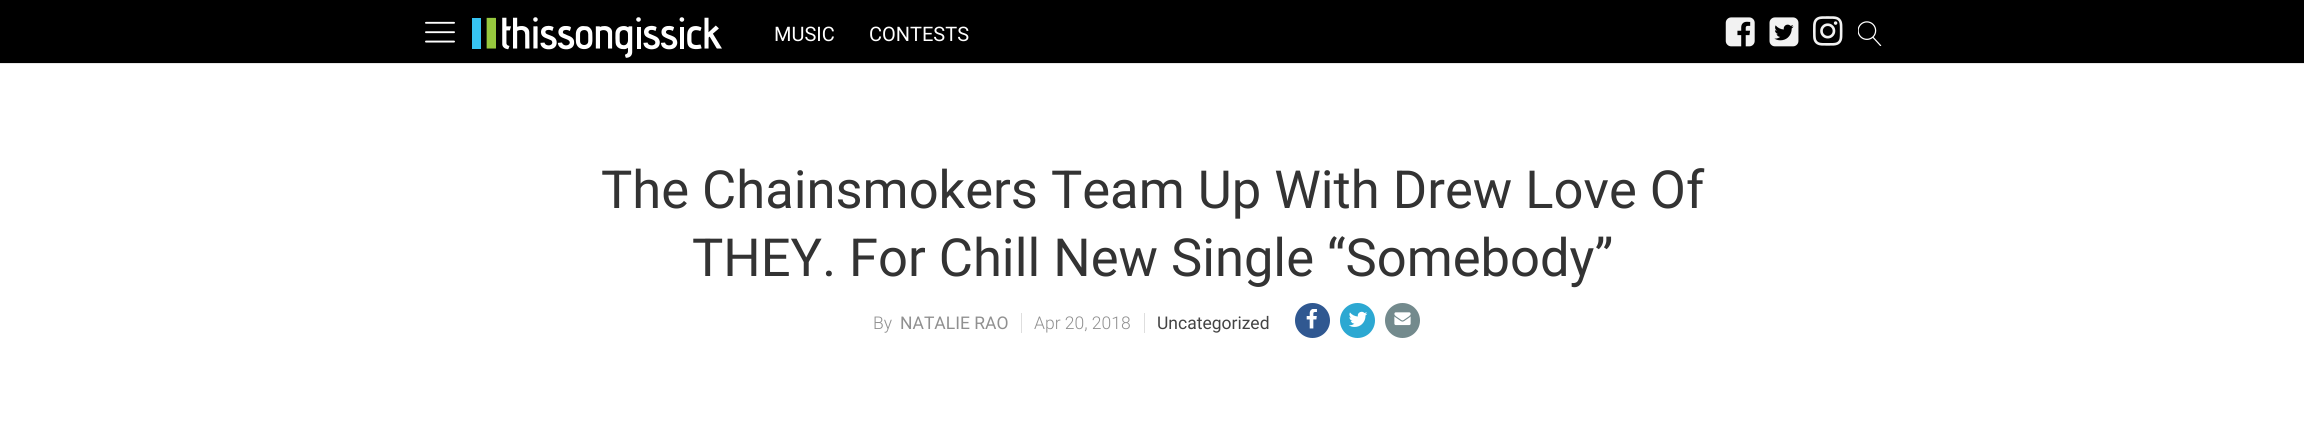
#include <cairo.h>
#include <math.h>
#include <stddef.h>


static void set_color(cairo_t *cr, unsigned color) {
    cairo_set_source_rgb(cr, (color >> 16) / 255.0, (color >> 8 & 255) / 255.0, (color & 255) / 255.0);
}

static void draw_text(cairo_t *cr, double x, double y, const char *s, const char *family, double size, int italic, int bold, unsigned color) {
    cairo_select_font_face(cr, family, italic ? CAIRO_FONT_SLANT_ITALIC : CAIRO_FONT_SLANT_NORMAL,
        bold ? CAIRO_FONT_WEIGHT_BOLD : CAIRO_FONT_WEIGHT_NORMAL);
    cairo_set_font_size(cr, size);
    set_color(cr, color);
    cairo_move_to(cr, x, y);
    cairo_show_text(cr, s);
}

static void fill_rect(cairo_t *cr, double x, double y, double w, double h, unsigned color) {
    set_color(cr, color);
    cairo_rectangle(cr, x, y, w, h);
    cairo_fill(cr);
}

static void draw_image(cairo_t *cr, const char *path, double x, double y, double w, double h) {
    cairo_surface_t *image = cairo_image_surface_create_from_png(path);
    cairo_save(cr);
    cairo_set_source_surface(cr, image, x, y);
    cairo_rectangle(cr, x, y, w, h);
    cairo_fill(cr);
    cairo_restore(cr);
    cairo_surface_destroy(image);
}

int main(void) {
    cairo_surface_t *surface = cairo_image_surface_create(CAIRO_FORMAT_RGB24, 2304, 426);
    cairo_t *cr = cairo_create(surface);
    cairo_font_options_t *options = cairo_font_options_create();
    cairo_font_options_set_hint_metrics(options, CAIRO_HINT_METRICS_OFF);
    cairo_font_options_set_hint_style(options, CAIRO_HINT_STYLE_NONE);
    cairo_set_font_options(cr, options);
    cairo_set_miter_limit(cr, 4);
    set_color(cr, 0xFFFFFF);
    cairo_paint(cr);
    fill_rect(cr, 0, 0, 2304, 63, 0x000000);
    fill_rect(cr, 0, 63, 2304, 1, 0xE7E7E7);
    draw_image(cr, "assets/img1.png", 425, 21, 30, 22);
    draw_image(cr, "assets/img2.png", 472, 17, 250, 41);
    draw_text(cr, 774, 41, "MUSIC", "Roboto", 20, 0, 0, 0xFFFFFF);
    draw_text(cr, 869, 41, "CONTESTS", "Roboto", 20, 0, 0, 0xFFFFFF);
    draw_image(cr, "assets/img3.png", 1725, 17, 30, 30);
    draw_image(cr, "assets/img4.png", 1769, 17, 30, 30);
    draw_image(cr, "assets/img5.png", 1813, 16, 30, 30);
    draw_image(cr, "assets/img6.png", 1858, 21, 24, 25);
    draw_text(cr, 601, 208, "The Chainsmokers Team Up With Drew Love Of", "Roboto", 52.5, 0, 0, 0x333333);
    draw_text(cr, 692, 276, "THEY. For Chill New Single “Somebody”", "Roboto", 52.5, 0, 0, 0x333333);
    draw_text(cr, 873, 329, "By", "Roboto Light", 17.5, 0, 0, 0x909090);
    draw_text(cr, 900, 329, "NATALIE RAO", "Roboto", 17.5, 0, 0, 0x909090);
    fill_rect(cr, 1021, 313, 1, 20, 0xDEDEDE);
    draw_text(cr, 1034, 329, "Apr 20, 2018", "Roboto Light", 17.5, 0, 0, 0x909090);
    fill_rect(cr, 1144, 313, 1, 20, 0xDEDEDE);
    draw_text(cr, 1157, 329, "Uncategorized", "Roboto", 17.5, 0, 0, 0x444444);
    set_color(cr, 0x305891);
    cairo_new_path(cr);
    cairo_arc(cr, 1312.5, 320.5, 17.5, 0, 2 * M_PI);
    cairo_fill(cr);
    draw_image(cr, "assets/img7.png", 1306, 309, 11, 20);
    set_color(cr, 0x2CA8D2);
    cairo_arc(cr, 1357.5, 320.5, 17.5, 0, 2 * M_PI);
    cairo_fill(cr);
    draw_image(cr, "assets/img8.png", 1349, 311, 19, 16);
    set_color(cr, 0x738A8D);
    cairo_arc(cr, 1402.5, 320.5, 17.5, 0, 2 * M_PI);
    cairo_fill(cr);
    draw_image(cr, "assets/img9.png", 1394, 312, 17, 14);
    cairo_surface_write_to_png(surface, "output.png");
    cairo_font_options_destroy(options);
    cairo_destroy(cr);
    cairo_surface_destroy(surface);
    return 0;
}
